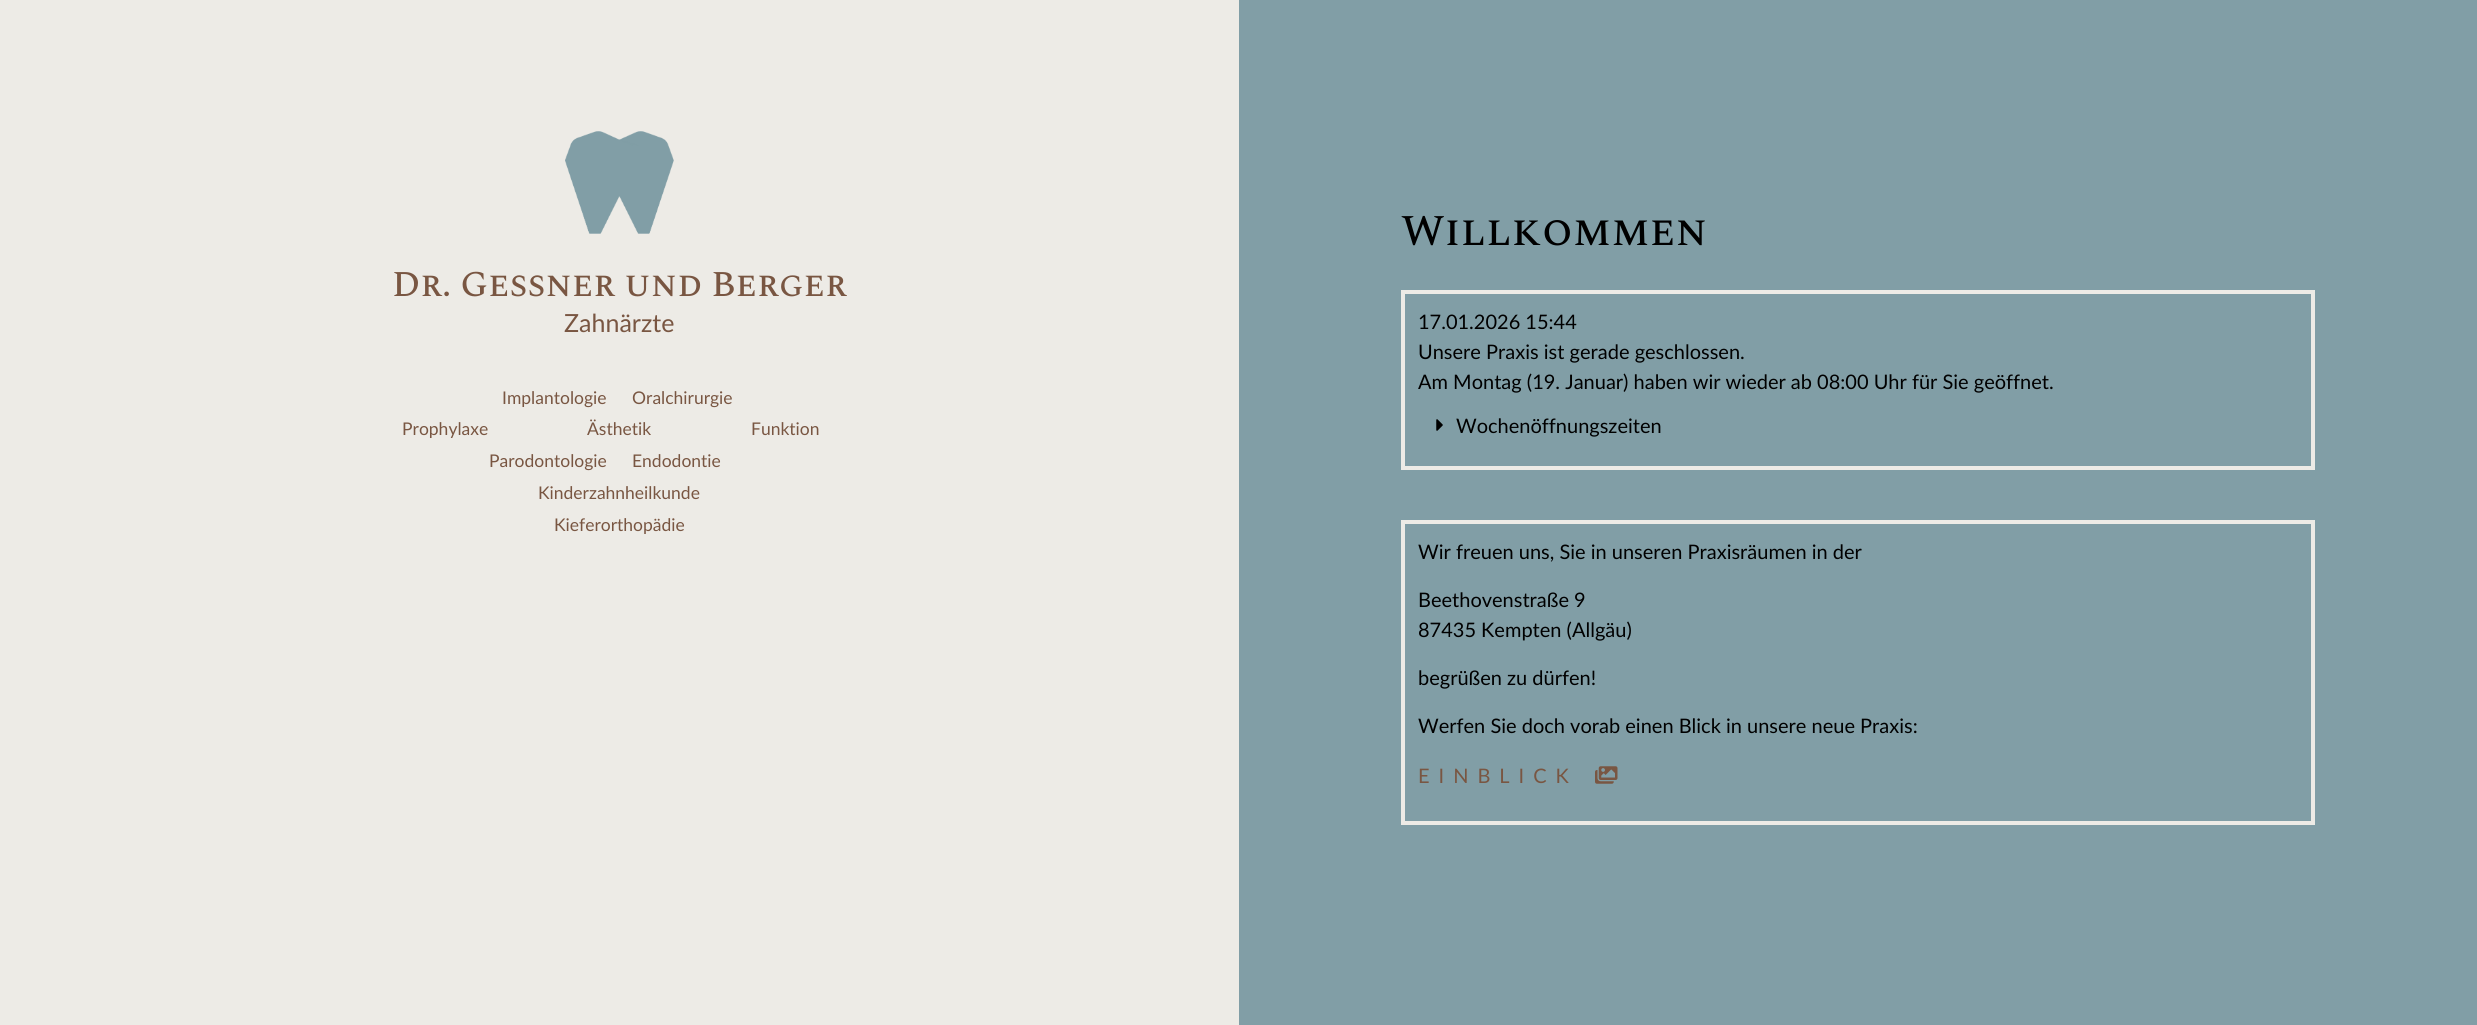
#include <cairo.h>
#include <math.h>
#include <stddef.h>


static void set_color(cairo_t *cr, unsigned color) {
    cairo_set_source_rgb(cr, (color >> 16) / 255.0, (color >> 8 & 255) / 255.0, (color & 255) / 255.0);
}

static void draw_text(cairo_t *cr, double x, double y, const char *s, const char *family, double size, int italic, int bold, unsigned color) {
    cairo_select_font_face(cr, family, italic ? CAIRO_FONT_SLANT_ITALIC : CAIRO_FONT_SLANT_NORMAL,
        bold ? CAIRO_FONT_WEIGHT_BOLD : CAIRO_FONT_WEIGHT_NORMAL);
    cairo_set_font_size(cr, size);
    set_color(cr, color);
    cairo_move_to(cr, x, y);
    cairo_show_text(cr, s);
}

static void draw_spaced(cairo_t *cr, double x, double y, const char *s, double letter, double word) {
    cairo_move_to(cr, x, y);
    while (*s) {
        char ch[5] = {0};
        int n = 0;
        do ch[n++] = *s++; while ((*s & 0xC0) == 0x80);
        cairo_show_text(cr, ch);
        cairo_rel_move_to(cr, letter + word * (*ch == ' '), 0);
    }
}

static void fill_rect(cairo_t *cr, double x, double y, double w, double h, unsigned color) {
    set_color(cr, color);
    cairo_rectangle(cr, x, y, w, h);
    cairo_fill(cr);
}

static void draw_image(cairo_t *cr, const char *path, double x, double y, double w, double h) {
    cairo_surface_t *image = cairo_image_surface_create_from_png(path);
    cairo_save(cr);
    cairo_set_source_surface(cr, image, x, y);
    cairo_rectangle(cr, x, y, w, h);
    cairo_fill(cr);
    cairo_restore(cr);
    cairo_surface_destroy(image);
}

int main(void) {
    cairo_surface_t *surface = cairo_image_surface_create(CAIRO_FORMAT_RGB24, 2477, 1025);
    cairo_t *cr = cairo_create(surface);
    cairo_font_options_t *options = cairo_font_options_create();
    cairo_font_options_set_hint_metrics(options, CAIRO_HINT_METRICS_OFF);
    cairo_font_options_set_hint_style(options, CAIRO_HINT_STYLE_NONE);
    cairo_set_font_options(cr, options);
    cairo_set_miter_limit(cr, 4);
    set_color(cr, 0xEDEBE6);
    cairo_paint(cr);
    draw_image(cr, "assets/img1.png", 565, 131, 109, 103);
    draw_text(cr, 392, 296, "Dr. Gessner und Berger", "Spectral SC Medium", 36.25, 0, 0, 0x795642);
    draw_text(cr, 564, 332, "Zahnärzte", "Lato", 25, 0, 0, 0x795642);
    draw_text(cr, 502, 404, "Implantologie", "Lato", 17.5, 0, 0, 0x795642);
    draw_text(cr, 632, 404, "Oralchirurgie", "Lato", 17.5, 0, 0, 0x795642);
    draw_text(cr, 402, 435, "Prophylaxe", "Lato", 17.5, 0, 0, 0x795642);
    draw_text(cr, 587, 435, "Ästhetik", "Lato", 17.5, 0, 0, 0x795642);
    draw_text(cr, 751, 435, "Funktion", "Lato", 17.5, 0, 0, 0x795642);
    draw_text(cr, 489, 467, "Parodontologie", "Lato", 17.5, 0, 0, 0x795642);
    draw_text(cr, 632, 467, "Endodontie", "Lato", 17.5, 0, 0, 0x795642);
    draw_text(cr, 538, 499, "Kinderzahnheilkunde", "Lato", 17.5, 0, 0, 0x795642);
    draw_text(cr, 554, 531, "Kieferorthopädie", "Lato", 17.5, 0, 0, 0x795642);
    fill_rect(cr, 1239, 0, 1238, 1025, 0x819EA6);
    draw_text(cr, 1401, 245, "Willkommen", "Spectral SC Medium", 43.75, 0, 0, 0x000000);
    cairo_rectangle(cr, 1403, 292, 910, 176);
    set_color(cr, 0xEDEBE6);
    cairo_set_line_width(cr, 4);
    cairo_stroke(cr);
    draw_text(cr, 1418, 329, "17.01.2026 15:44", "Lato", 20, 0, 0, 0x000000);
    draw_text(cr, 1418, 359, "Unsere Praxis ist gerade geschlossen.", "Lato", 20, 0, 0, 0x000000);
    draw_text(cr, 1418, 389, "Am Montag (19. Januar) haben wir wieder ab 08:00 Uhr für Sie geöffnet.", "Lato", 20, 0, 0, 0x000000);
    draw_image(cr, "assets/img2.png", 1436, 419, 7, 12);
    draw_text(cr, 1456, 433, "Wochenöffnungszeiten", "Lato", 20, 0, 0, 0x000000);
    cairo_rectangle(cr, 1403, 522, 910, 301);
    set_color(cr, 0xEDEBE6);
    cairo_stroke(cr);
    draw_text(cr, 1418, 559, "Wir freuen uns, Sie in unseren Praxisräumen in der", "Lato", 20, 0, 0, 0x000000);
    draw_text(cr, 1418, 607, "Beethovenstraße 9", "Lato", 20, 0, 0, 0x000000);
    draw_text(cr, 1418, 637, "87435 Kempten (Allgäu)", "Lato", 20, 0, 0, 0x000000);
    draw_text(cr, 1418, 685, "begrüßen zu dürfen!", "Lato", 20, 0, 0, 0x000000);
    draw_text(cr, 1418, 733, "Werfen Sie doch vorab einen Blick in unsere neue Praxis:", "Lato", 20, 0, 0, 0x000000);
    set_color(cr, 0x795642);
    draw_spaced(cr, 1418, 783, "EINBLICK", 9, 0);
    draw_image(cr, "assets/img3.png", 1595, 766, 23, 18);
    cairo_surface_write_to_png(surface, "output.png");
    cairo_font_options_destroy(options);
    cairo_destroy(cr);
    cairo_surface_destroy(surface);
    return 0;
}
